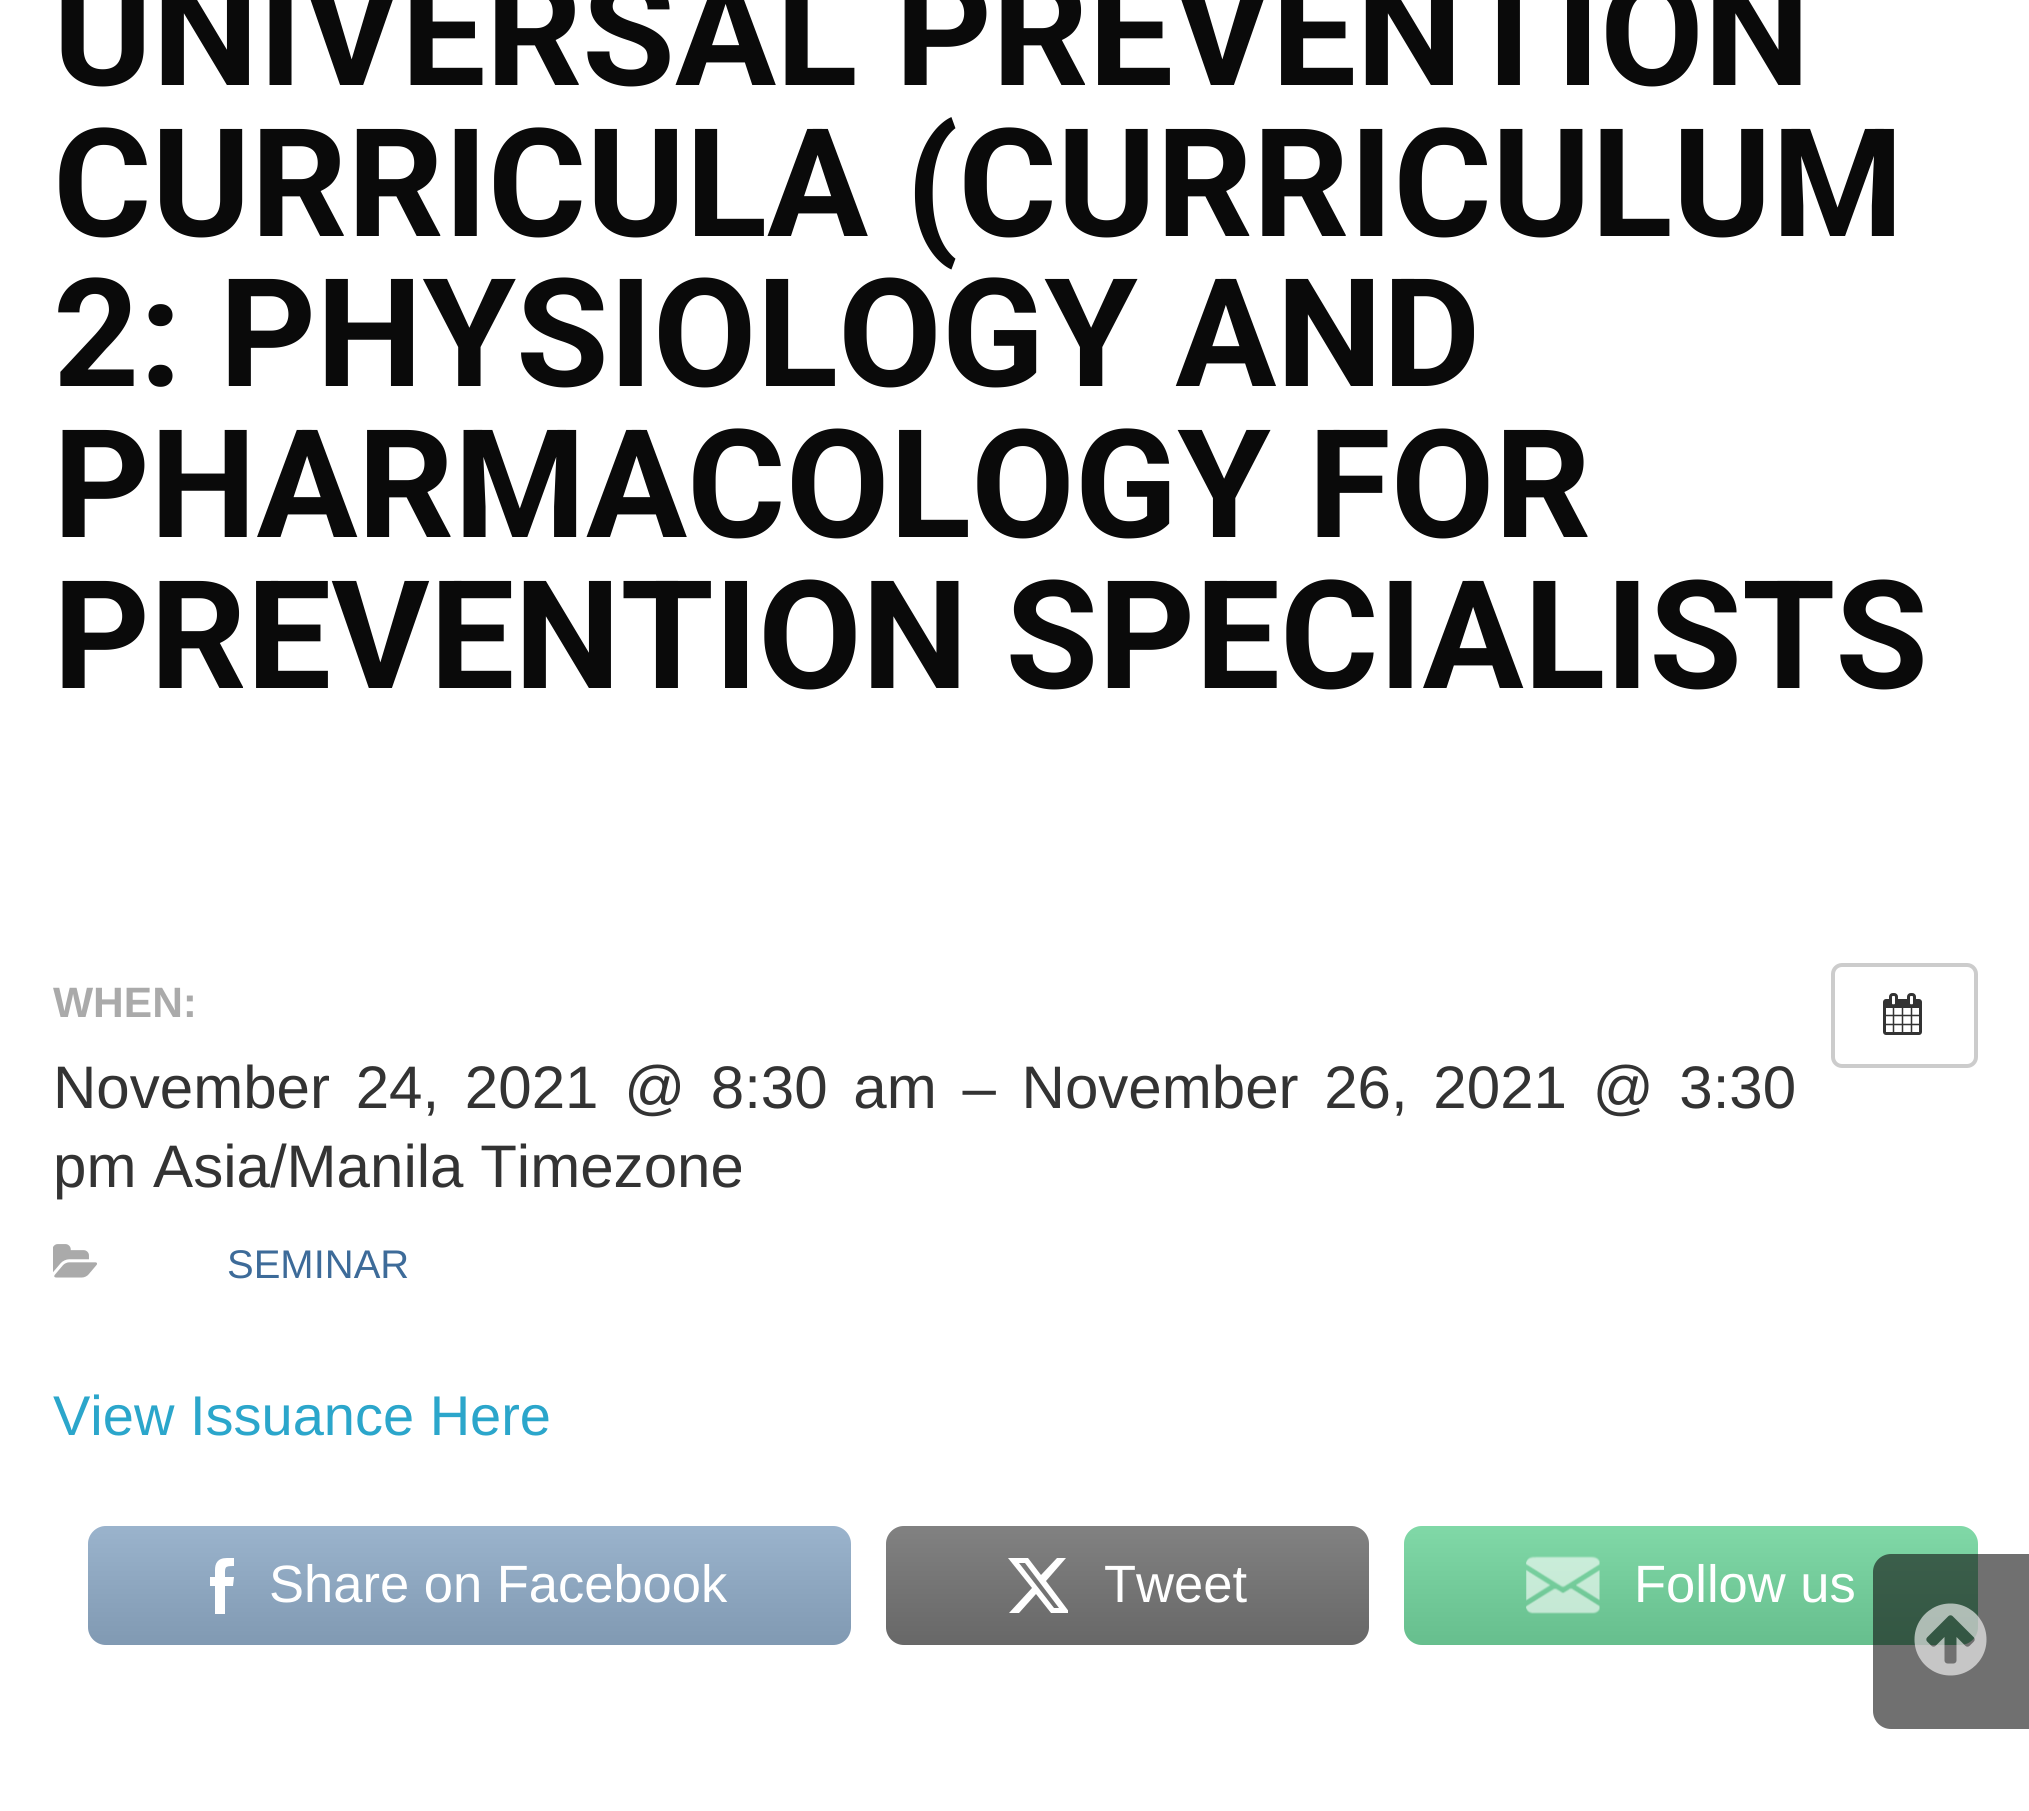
#include <cairo.h>
#include <math.h>
#include <stddef.h>


static void set_color(cairo_t *cr, unsigned color) {
    cairo_set_source_rgb(cr, (color >> 16) / 255.0, (color >> 8 & 255) / 255.0, (color & 255) / 255.0);
}

static void draw_text(cairo_t *cr, double x, double y, const char *s, const char *family, double size, int italic, int bold, unsigned color) {
    cairo_select_font_face(cr, family, italic ? CAIRO_FONT_SLANT_ITALIC : CAIRO_FONT_SLANT_NORMAL,
        bold ? CAIRO_FONT_WEIGHT_BOLD : CAIRO_FONT_WEIGHT_NORMAL);
    cairo_set_font_size(cr, size);
    set_color(cr, color);
    cairo_move_to(cr, x, y);
    cairo_show_text(cr, s);
}

static void draw_spaced(cairo_t *cr, double x, double y, const char *s, double letter, double word) {
    cairo_move_to(cr, x, y);
    while (*s) {
        char ch[5] = {0};
        int n = 0;
        do ch[n++] = *s++; while ((*s & 0xC0) == 0x80);
        cairo_show_text(cr, ch);
        cairo_rel_move_to(cr, letter + word * (*ch == ' '), 0);
    }
}

static void rounded_rect(cairo_t *cr, double x, double y, double w, double h, double r) {
    cairo_new_sub_path(cr);
    cairo_arc(cr, x + w - r, y + h - r, r, 0, M_PI / 2);
    cairo_arc(cr, x + r, y + h - r, r, M_PI / 2, M_PI);
    cairo_arc(cr, x + r, y + r, r, M_PI, 1.5 * M_PI);
    cairo_arc(cr, x + w - r, y + r, r, 1.5 * M_PI, 2 * M_PI);
    cairo_close_path(cr);
}

static void draw_image(cairo_t *cr, const char *path, double x, double y, double w, double h) {
    cairo_surface_t *image = cairo_image_surface_create_from_png(path);
    cairo_save(cr);
    cairo_set_source_surface(cr, image, x, y);
    cairo_rectangle(cr, x, y, w, h);
    cairo_fill(cr);
    cairo_restore(cr);
    cairo_surface_destroy(image);
}

int main(void) {
    cairo_surface_t *surface = cairo_image_surface_create(CAIRO_FORMAT_RGB24, 2029, 1811);
    cairo_t *cr = cairo_create(surface);
    cairo_font_options_t *options = cairo_font_options_create();
    cairo_font_options_set_hint_metrics(options, CAIRO_HINT_METRICS_OFF);
    cairo_font_options_set_hint_style(options, CAIRO_HINT_STYLE_NONE);
    cairo_set_font_options(cr, options);
    cairo_set_miter_limit(cr, 4);
    cairo_pattern_t *gradient;
    set_color(cr, 0xFFFFFF);
    cairo_paint(cr);
    draw_text(cr, 53, 85, "UNIVERSAL PREVENTION", "Roboto", 150.6, 0, 1, 0x0A0A0A);
    draw_text(cr, 53, 236, "CURRICULA (CURRICULUM", "Roboto", 150.6, 0, 1, 0x0A0A0A);
    draw_text(cr, 53, 386, "2: PHYSIOLOGY AND", "Roboto", 150.6, 0, 1, 0x0A0A0A);
    draw_text(cr, 53, 537, "PHARMACOLOGY FOR", "Roboto", 150.6, 0, 1, 0x0A0A0A);
    draw_text(cr, 53, 688, "PREVENTION SPECIALISTS", "Roboto", 150.6, 0, 1, 0x0A0A0A);
    draw_text(cr, 53, 1017, "WHEN:", "Liberation Sans", 42.5, 0, 1, 0xAAAAAA);
    cairo_select_font_face(cr, "Liberation Sans", CAIRO_FONT_SLANT_NORMAL, CAIRO_FONT_WEIGHT_NORMAL);
    cairo_set_font_size(cr, 60.05);
    set_color(cr, 0x333333);
    draw_spaced(cr, 53, 1108, "November 24, 2021 @ 8:30 am – November 26, 2021 @ 3:30", 0, 9);
    draw_text(cr, 53, 1187, "pm Asia/Manila Timezone", "Liberation Sans", 60.05, 0, 0, 0x333333);
    draw_image(cr, "assets/img1.png", 53, 1244, 44, 34);
    draw_text(cr, 227, 1278, "SEMINAR", "Liberation Sans", 40, 0, 0, 0x3D6B99);
    rounded_rect(cr, 1833, 965, 143, 101, 9);
    set_color(cr, 0xCCCCCC);
    cairo_set_line_width(cr, 4);
    cairo_stroke(cr);
    draw_image(cr, "assets/img2.png", 1883, 993, 39, 42);
    draw_text(cr, 53, 1435, "View Issuance Here", "Liberation Sans", 56, 0, 0, 0x2BA6CB);
    set_color(cr, 0x85A3C2);
    rounded_rect(cr, 88, 1526, 763, 119, 18);
    cairo_fill(cr);
    gradient = cairo_pattern_create_linear(469, 1645, 469, 1526);
    cairo_pattern_add_color_stop_rgba(gradient, 0, 0.4, 0.4, 0.4, 0.17);
    cairo_pattern_add_color_stop_rgba(gradient, 1, 1, 1, 1, 0.17);
    cairo_set_source(cr, gradient);
    cairo_pattern_destroy(gradient);
    rounded_rect(cr, 88, 1526, 763, 119, 18);
    cairo_fill(cr);
    set_color(cr, 0xFFFFFF);
    cairo_set_fill_rule(cr, CAIRO_FILL_RULE_EVEN_ODD);
    cairo_new_path(cr);
    cairo_move_to(cr, 215, 1614);
    cairo_line_to(cr, 225, 1614);
    cairo_line_to(cr, 225, 1586);
    cairo_line_to(cr, 233, 1586);
    cairo_line_to(cr, 234, 1577);
    cairo_line_to(cr, 225, 1577);
    cairo_curve_to(cr, 225, 1567, 224, 1566, 234, 1566);
    cairo_line_to(cr, 234, 1558);
    cairo_line_to(cr, 227, 1558);
    cairo_curve_to(cr, 217, 1558, 215, 1564, 215, 1570);
    cairo_line_to(cr, 215, 1577);
    cairo_line_to(cr, 210, 1577);
    cairo_line_to(cr, 210, 1586);
    cairo_line_to(cr, 215, 1586);
    cairo_close_path(cr);
    cairo_fill(cr);
    draw_text(cr, 269, 1602, "Share on Facebook", "Liberation Sans", 52.5, 0, 0, 0xFFFFFF);
    set_color(cr, 0x676767);
    rounded_rect(cr, 886, 1526, 483, 119, 18);
    cairo_fill(cr);
    gradient = cairo_pattern_create_linear(1127, 1645, 1127, 1526);
    cairo_pattern_add_color_stop_rgba(gradient, 0, 0.4, 0.4, 0.4, 0.17);
    cairo_pattern_add_color_stop_rgba(gradient, 1, 1, 1, 1, 0.17);
    cairo_set_source(cr, gradient);
    cairo_pattern_destroy(gradient);
    rounded_rect(cr, 886, 1526, 483, 119, 18);
    cairo_fill(cr);
    cairo_save(cr);
    cairo_set_fill_rule(cr, CAIRO_FILL_RULE_WINDING);
    cairo_rectangle(cr, 1008, 1558, 60, 56);
    cairo_clip(cr);
    set_color(cr, 0xFFFFFF);
    cairo_new_path(cr);
    cairo_move_to(cr, 1057, 1558);
    cairo_line_to(cr, 1066, 1558);
    cairo_line_to(cr, 1046, 1581);
    cairo_line_to(cr, 1070, 1613);
    cairo_line_to(cr, 1051, 1613);
    cairo_line_to(cr, 1036, 1594);
    cairo_line_to(cr, 1019, 1613);
    cairo_line_to(cr, 1009, 1613);
    cairo_line_to(cr, 1032, 1588);
    cairo_line_to(cr, 1008, 1558);
    cairo_line_to(cr, 1028, 1558);
    cairo_line_to(cr, 1041, 1575);
    cairo_close_path(cr);
    cairo_move_to(cr, 1054, 1608);
    cairo_line_to(cr, 1059, 1608);
    cairo_line_to(cr, 1025, 1563);
    cairo_line_to(cr, 1019, 1563);
    cairo_close_path(cr);
    cairo_fill(cr);
    cairo_restore(cr);
    draw_text(cr, 1104, 1602, "Tweet", "Liberation Sans", 52.5, 0, 0, 0xFFFFFF);
    set_color(cr, 0x66D095);
    rounded_rect(cr, 1404, 1526, 574, 119, 18);
    cairo_fill(cr);
    gradient = cairo_pattern_create_linear(1691, 1645, 1691, 1526);
    cairo_pattern_add_color_stop_rgba(gradient, 0, 0.4, 0.4, 0.4, 0.17);
    cairo_pattern_add_color_stop_rgba(gradient, 1, 1, 1, 1, 0.17);
    cairo_set_source(cr, gradient);
    cairo_pattern_destroy(gradient);
    rounded_rect(cr, 1404, 1526, 574, 119, 18);
    cairo_fill(cr);
    draw_image(cr, "assets/img3.png", 1526, 1556, 74, 58);
    draw_text(cr, 1634, 1602, "Follow us", "Liberation Sans", 52.5, 0, 0, 0xFFFFFF);
    cairo_set_source_rgba(cr, 0.067, 0.067, 0.067, 0.6);
    cairo_new_path(cr);
    cairo_move_to(cr, 1891, 1554);
    cairo_line_to(cr, 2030, 1554);
    cairo_line_to(cr, 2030, 1729);
    cairo_line_to(cr, 1891, 1729);
    cairo_curve_to(cr, 1881, 1729, 1873, 1721, 1873, 1711);
    cairo_line_to(cr, 1873, 1572);
    cairo_curve_to(cr, 1873, 1562, 1881, 1554, 1891, 1554);
    cairo_close_path(cr);
    cairo_fill(cr);
    draw_image(cr, "assets/img4.png", 1914, 1603, 73, 73);
    cairo_surface_write_to_png(surface, "output.png");
    cairo_font_options_destroy(options);
    cairo_destroy(cr);
    cairo_surface_destroy(surface);
    return 0;
}
